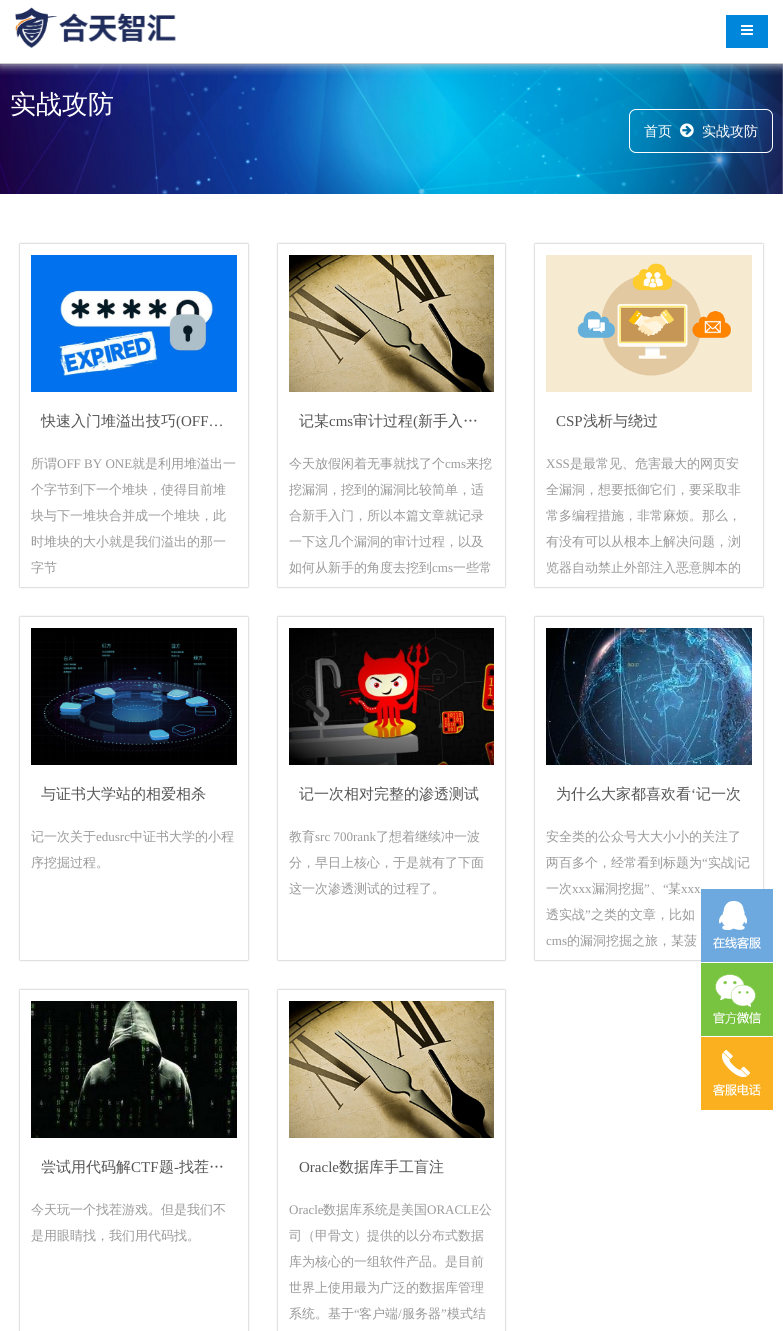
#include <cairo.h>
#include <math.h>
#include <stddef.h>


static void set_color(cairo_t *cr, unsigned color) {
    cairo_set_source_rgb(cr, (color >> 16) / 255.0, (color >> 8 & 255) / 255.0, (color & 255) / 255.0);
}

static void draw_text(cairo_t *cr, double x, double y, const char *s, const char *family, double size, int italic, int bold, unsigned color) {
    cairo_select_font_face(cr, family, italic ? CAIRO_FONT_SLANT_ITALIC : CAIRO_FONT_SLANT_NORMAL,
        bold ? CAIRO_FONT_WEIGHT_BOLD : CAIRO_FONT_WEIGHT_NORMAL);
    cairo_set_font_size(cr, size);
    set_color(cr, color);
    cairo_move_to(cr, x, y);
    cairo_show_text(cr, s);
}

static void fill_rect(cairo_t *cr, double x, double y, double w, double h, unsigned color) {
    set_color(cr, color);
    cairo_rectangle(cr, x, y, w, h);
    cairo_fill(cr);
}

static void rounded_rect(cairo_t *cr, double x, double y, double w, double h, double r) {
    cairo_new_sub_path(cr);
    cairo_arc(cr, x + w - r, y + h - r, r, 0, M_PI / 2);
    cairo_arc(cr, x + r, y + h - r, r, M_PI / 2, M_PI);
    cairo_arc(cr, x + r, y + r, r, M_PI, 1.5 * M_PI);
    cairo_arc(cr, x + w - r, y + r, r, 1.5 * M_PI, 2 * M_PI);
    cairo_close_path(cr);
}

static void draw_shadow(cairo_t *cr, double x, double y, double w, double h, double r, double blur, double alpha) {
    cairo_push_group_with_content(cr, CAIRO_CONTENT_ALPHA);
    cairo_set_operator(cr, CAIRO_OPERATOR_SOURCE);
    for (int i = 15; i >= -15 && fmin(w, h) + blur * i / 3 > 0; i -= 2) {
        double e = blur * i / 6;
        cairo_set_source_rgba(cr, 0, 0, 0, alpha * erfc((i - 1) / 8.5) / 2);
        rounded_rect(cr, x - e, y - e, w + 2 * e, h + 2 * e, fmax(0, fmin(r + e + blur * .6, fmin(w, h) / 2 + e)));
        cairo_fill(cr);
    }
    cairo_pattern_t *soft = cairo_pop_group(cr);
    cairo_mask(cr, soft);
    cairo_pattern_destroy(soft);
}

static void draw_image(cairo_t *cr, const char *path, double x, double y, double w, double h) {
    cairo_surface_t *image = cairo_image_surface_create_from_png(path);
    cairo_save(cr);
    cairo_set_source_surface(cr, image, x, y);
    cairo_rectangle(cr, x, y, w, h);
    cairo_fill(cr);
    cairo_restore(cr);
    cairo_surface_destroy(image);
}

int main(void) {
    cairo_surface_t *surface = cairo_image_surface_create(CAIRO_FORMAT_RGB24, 783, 1331);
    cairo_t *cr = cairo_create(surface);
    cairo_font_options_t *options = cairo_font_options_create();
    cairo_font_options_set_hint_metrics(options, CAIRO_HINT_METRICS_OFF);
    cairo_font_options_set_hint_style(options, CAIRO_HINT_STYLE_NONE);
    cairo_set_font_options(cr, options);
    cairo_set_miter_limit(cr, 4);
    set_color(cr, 0xFFFFFF);
    cairo_paint(cr);
    draw_image(cr, "assets/img3.png", 0, 64, 783, 130);
    cairo_save(cr);
    cairo_rectangle(cr, 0, 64, 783, 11);
    cairo_clip(cr);
    set_color(cr, 0xCCCCCC);
    draw_shadow(cr, 0, 1, 783, 64, 0, 5, 1);
    cairo_restore(cr);
    fill_rect(cr, 0, 63, 783, 1, 0xCCCCCC);
    draw_image(cr, "assets/img1.png", 15, 7, 161, 41);
    fill_rect(cr, 726, 15, 42, 33, 0x0086DA);
    draw_image(cr, "assets/img2.png", 741, 25, 12, 10);
    draw_text(cr, 10, 113, "实战攻防", "WenQuanYi Zen Hei Medium", 26, 0, 0, 0xFFFFFF);
    rounded_rect(cr, 629.5, 109.5, 143, 43, 6.5);
    cairo_set_line_width(cr, 1);
    cairo_stroke(cr);
    draw_text(cr, 644, 136, "首页", "WenQuanYi Zen Hei Medium", 14, 0, 0, 0xFFFFFF);
    draw_image(cr, "assets/img4.png", 680, 123, 14, 15);
    draw_text(cr, 702, 136, "实战攻防", "WenQuanYi Zen Hei Medium", 14, 0, 0, 0xFFFFFF);
    cairo_save(cr);
    cairo_set_fill_rule(cr, CAIRO_FILL_RULE_EVEN_ODD);
    cairo_new_path(cr);
    cairo_move_to(cr, 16, 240);
    cairo_line_to(cr, 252, 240);
    cairo_line_to(cr, 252, 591);
    cairo_line_to(cr, 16, 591);
    cairo_close_path(cr);
    cairo_move_to(cr, 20, 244);
    cairo_line_to(cr, 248, 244);
    cairo_line_to(cr, 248, 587);
    cairo_line_to(cr, 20, 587);
    cairo_close_path(cr);
    cairo_clip(cr);
    set_color(cr, 0x000000);
    draw_shadow(cr, 20, 244, 228, 343, 0, 1, 0.35);
    cairo_restore(cr);
    draw_image(cr, "assets/img5.png", 31, 255, 206, 137);
    draw_text(cr, 41, 426, "快速入门堆溢出技巧", "WenQuanYi Zen Hei Medium", 15, 0, 0, 0x555555);
    draw_text(cr, 176, 426, "(OFF…", "Liberation Serif", 15, 0, 0, 0x555555);
    draw_text(cr, 31, 468, "所谓", "WenQuanYi Zen Hei Medium", 13, 0, 0, 0x999999);
    draw_text(cr, 57, 468, "OFF BY ONE", "Liberation Serif", 13, 0, 0, 0x999999);
    draw_text(cr, 132, 468, "就是利用堆溢出一", "WenQuanYi Zen Hei Medium", 13, 0, 0, 0x999999);
    draw_text(cr, 31, 494, "个字节到下一个堆块，使得目前堆", "WenQuanYi Zen Hei Medium", 13, 0, 0, 0x999999);
    draw_text(cr, 31, 520, "块与下一堆块合并成一个堆块，此", "WenQuanYi Zen Hei Medium", 13, 0, 0, 0x999999);
    draw_text(cr, 31, 546, "时堆块的大小就是我们溢出的那一", "WenQuanYi Zen Hei Medium", 13, 0, 0, 0x999999);
    draw_text(cr, 31, 572, "字节", "WenQuanYi Zen Hei Medium", 13, 0, 0, 0x999999);
    cairo_save(cr);
    cairo_set_fill_rule(cr, CAIRO_FILL_RULE_EVEN_ODD);
    cairo_new_path(cr);
    cairo_move_to(cr, 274, 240);
    cairo_line_to(cr, 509, 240);
    cairo_line_to(cr, 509, 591);
    cairo_line_to(cr, 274, 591);
    cairo_close_path(cr);
    cairo_move_to(cr, 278, 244);
    cairo_line_to(cr, 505, 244);
    cairo_line_to(cr, 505, 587);
    cairo_line_to(cr, 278, 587);
    cairo_close_path(cr);
    cairo_clip(cr);
    set_color(cr, 0x000000);
    draw_shadow(cr, 278, 244, 227, 343, 0, 1, 0.35);
    cairo_restore(cr);
    draw_image(cr, "assets/img6.png", 289, 255, 205, 137);
    draw_text(cr, 299, 426, "记某", "WenQuanYi Zen Hei Medium", 15, 0, 0, 0x555555);
    draw_text(cr, 329, 426, "cms", "Liberation Serif", 15, 0, 0, 0x555555);
    draw_text(cr, 353, 426, "审计过程", "WenQuanYi Zen Hei Medium", 15, 0, 0, 0x555555);
    draw_text(cr, 413, 426, "(", "Liberation Serif", 15, 0, 0, 0x555555);
    draw_text(cr, 418, 426, "新手入…", "WenQuanYi Zen Hei Medium", 15, 0, 0, 0x555555);
    draw_text(cr, 289, 468, "今天放假闲着无事就找了个", "WenQuanYi Zen Hei Medium", 13, 0, 0, 0x999999);
    draw_text(cr, 445, 468, "cms", "Liberation Serif", 13, 0, 0, 0x999999);
    draw_text(cr, 466, 468, "来挖", "WenQuanYi Zen Hei Medium", 13, 0, 0, 0x999999);
    draw_text(cr, 289, 494, "挖漏洞，挖到的漏洞比较简单，适", "WenQuanYi Zen Hei Medium", 13, 0, 0, 0x999999);
    draw_text(cr, 289, 520, "合新手入门，所以本篇文章就记录", "WenQuanYi Zen Hei Medium", 13, 0, 0, 0x999999);
    draw_text(cr, 289, 546, "一下这几个漏洞的审计过程，以及", "WenQuanYi Zen Hei Medium", 13, 0, 0, 0x999999);
    draw_text(cr, 289, 572, "如何从新手的角度去挖到", "WenQuanYi Zen Hei Medium", 13, 0, 0, 0x999999);
    draw_text(cr, 432, 572, "cms", "Liberation Serif", 13, 0, 0, 0x999999);
    draw_text(cr, 453, 572, "一些常", "WenQuanYi Zen Hei Medium", 13, 0, 0, 0x999999);
    cairo_save(cr);
    cairo_set_fill_rule(cr, CAIRO_FILL_RULE_EVEN_ODD);
    cairo_new_path(cr);
    cairo_move_to(cr, 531, 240);
    cairo_line_to(cr, 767, 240);
    cairo_line_to(cr, 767, 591);
    cairo_line_to(cr, 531, 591);
    cairo_close_path(cr);
    cairo_move_to(cr, 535, 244);
    cairo_line_to(cr, 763, 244);
    cairo_line_to(cr, 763, 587);
    cairo_line_to(cr, 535, 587);
    cairo_close_path(cr);
    cairo_clip(cr);
    set_color(cr, 0x000000);
    draw_shadow(cr, 535, 244, 228, 343, 0, 1, 0.35);
    cairo_restore(cr);
    draw_image(cr, "assets/img7.png", 546, 255, 206, 137);
    draw_text(cr, 556, 426, "CSP", "Liberation Serif", 15, 0, 0, 0x555555);
    draw_text(cr, 583, 426, "浅析与绕过", "WenQuanYi Zen Hei Medium", 15, 0, 0, 0x555555);
    draw_text(cr, 546, 468, "XSS", "Liberation Serif", 13, 0, 0, 0x999999);
    draw_text(cr, 570, 468, "是最常见、危害最大的网页安", "WenQuanYi Zen Hei Medium", 13, 0, 0, 0x999999);
    draw_text(cr, 546, 494, "全漏洞，想要抵御它们，要采取非", "WenQuanYi Zen Hei Medium", 13, 0, 0, 0x999999);
    draw_text(cr, 546, 520, "常多编程措施，非常麻烦。那么，", "WenQuanYi Zen Hei Medium", 13, 0, 0, 0x999999);
    draw_text(cr, 546, 546, "有没有可以从根本上解决问题，浏", "WenQuanYi Zen Hei Medium", 13, 0, 0, 0x999999);
    draw_text(cr, 546, 572, "览器自动禁止外部注入恶意脚本的", "WenQuanYi Zen Hei Medium", 13, 0, 0, 0x999999);
    cairo_save(cr);
    cairo_set_fill_rule(cr, CAIRO_FILL_RULE_EVEN_ODD);
    cairo_new_path(cr);
    cairo_move_to(cr, 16, 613);
    cairo_line_to(cr, 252, 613);
    cairo_line_to(cr, 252, 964);
    cairo_line_to(cr, 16, 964);
    cairo_close_path(cr);
    cairo_move_to(cr, 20, 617);
    cairo_line_to(cr, 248, 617);
    cairo_line_to(cr, 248, 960);
    cairo_line_to(cr, 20, 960);
    cairo_close_path(cr);
    cairo_clip(cr);
    set_color(cr, 0x000000);
    draw_shadow(cr, 20, 617, 228, 343, 0, 1, 0.35);
    cairo_restore(cr);
    draw_image(cr, "assets/img8.png", 31, 628, 206, 137);
    draw_text(cr, 41, 799, "与证书大学站的相爱相杀", "WenQuanYi Zen Hei Medium", 15, 0, 0, 0x555555);
    draw_text(cr, 31, 841, "记一次关于", "WenQuanYi Zen Hei Medium", 13, 0, 0, 0x999999);
    draw_text(cr, 96, 841, "edusrc", "Liberation Serif", 13, 0, 0, 0x999999);
    draw_text(cr, 130, 841, "中证书大学的小程", "WenQuanYi Zen Hei Medium", 13, 0, 0, 0x999999);
    draw_text(cr, 31, 867, "序挖掘过程。", "WenQuanYi Zen Hei Medium", 13, 0, 0, 0x999999);
    cairo_save(cr);
    cairo_set_fill_rule(cr, CAIRO_FILL_RULE_EVEN_ODD);
    cairo_new_path(cr);
    cairo_move_to(cr, 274, 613);
    cairo_line_to(cr, 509, 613);
    cairo_line_to(cr, 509, 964);
    cairo_line_to(cr, 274, 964);
    cairo_close_path(cr);
    cairo_move_to(cr, 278, 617);
    cairo_line_to(cr, 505, 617);
    cairo_line_to(cr, 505, 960);
    cairo_line_to(cr, 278, 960);
    cairo_close_path(cr);
    cairo_clip(cr);
    set_color(cr, 0x000000);
    draw_shadow(cr, 278, 617, 227, 343, 0, 1, 0.35);
    cairo_restore(cr);
    draw_image(cr, "assets/img9.png", 289, 628, 205, 137);
    draw_text(cr, 299, 799, "记一次相对完整的渗透测试", "WenQuanYi Zen Hei Medium", 15, 0, 0, 0x555555);
    draw_text(cr, 289, 841, "教育", "WenQuanYi Zen Hei Medium", 13, 0, 0, 0x999999);
    draw_text(cr, 315, 841, "src 700rank", "Liberation Serif", 13, 0, 0, 0x999999);
    draw_text(cr, 376, 841, "了想着继续冲一波", "WenQuanYi Zen Hei Medium", 13, 0, 0, 0x999999);
    draw_text(cr, 289, 867, "分，早日上核心，于是就有了下面", "WenQuanYi Zen Hei Medium", 13, 0, 0, 0x999999);
    draw_text(cr, 289, 893, "这一次渗透测试的过程了。", "WenQuanYi Zen Hei Medium", 13, 0, 0, 0x999999);
    cairo_save(cr);
    cairo_set_fill_rule(cr, CAIRO_FILL_RULE_EVEN_ODD);
    cairo_new_path(cr);
    cairo_move_to(cr, 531, 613);
    cairo_line_to(cr, 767, 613);
    cairo_line_to(cr, 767, 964);
    cairo_line_to(cr, 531, 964);
    cairo_close_path(cr);
    cairo_move_to(cr, 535, 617);
    cairo_line_to(cr, 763, 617);
    cairo_line_to(cr, 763, 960);
    cairo_line_to(cr, 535, 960);
    cairo_close_path(cr);
    cairo_clip(cr);
    set_color(cr, 0x000000);
    draw_shadow(cr, 535, 617, 228, 343, 0, 1, 0.35);
    cairo_restore(cr);
    draw_image(cr, "assets/img10.png", 546, 628, 206, 137);
    draw_text(cr, 556, 799, "为什么大家都喜欢看", "WenQuanYi Zen Hei Medium", 15, 0, 0, 0x555555);
    draw_text(cr, 691, 799, "‘", "Liberation Serif", 15, 0, 0, 0x555555);
    draw_text(cr, 696, 799, "记一次", "WenQuanYi Zen Hei Medium", 15, 0, 0, 0x555555);
    draw_text(cr, 546, 841, "安全类的公众号大大小小的关注了", "WenQuanYi Zen Hei Medium", 13, 0, 0, 0x999999);
    draw_text(cr, 546, 867, "两百多个，经常看到标题为", "WenQuanYi Zen Hei Medium", 13, 0, 0, 0x999999);
    draw_text(cr, 702, 867, "“", "Liberation Serif", 13, 0, 0, 0x999999);
    draw_text(cr, 708, 867, "实战", "WenQuanYi Zen Hei Medium", 13, 0, 0, 0x999999);
    draw_text(cr, 734, 867, "|", "Liberation Serif", 13, 0, 0, 0x999999);
    draw_text(cr, 737, 867, "记", "WenQuanYi Zen Hei Medium", 13, 0, 0, 0x999999);
    draw_text(cr, 546, 893, "一次", "WenQuanYi Zen Hei Medium", 13, 0, 0, 0x999999);
    draw_text(cr, 592, 893, "漏洞挖掘", "WenQuanYi Zen Hei Medium", 13, 0, 0, 0x999999);
    draw_text(cr, 644, 893, "”", "Liberation Serif", 13, 0, 0, 0x999999);
    draw_text(cr, 663, 893, "“", "Liberation Serif", 13, 0, 0, 0x999999);
    draw_text(cr, 668, 893, "某", "WenQuanYi Zen Hei Medium", 13, 0, 0, 0x999999);
    draw_text(cr, 572, 893, "xxx", "Liberation Serif", 13, 0, 0, 0x999999);
    draw_text(cr, 681, 893, "xxx", "Liberation Serif", 13, 0, 0, 0x999999);
    draw_text(cr, 650, 893, "、", "WenQuanYi Zen Hei Medium", 13, 0, 0, 0x999999);
    draw_text(cr, 546, 919, "透实战", "WenQuanYi Zen Hei Medium", 13, 0, 0, 0x999999);
    draw_text(cr, 585, 919, "”", "Liberation Serif", 13, 0, 0, 0x999999);
    draw_text(cr, 591, 919, "之类的文章，比如", "WenQuanYi Zen Hei Medium", 13, 0, 0, 0x999999);
    draw_text(cr, 546, 945, "cms", "Liberation Serif", 13, 0, 0, 0x999999);
    draw_text(cr, 567, 945, "的漏洞挖掘之旅，某菠", "WenQuanYi Zen Hei Medium", 13, 0, 0, 0x999999);
    cairo_save(cr);
    cairo_set_fill_rule(cr, CAIRO_FILL_RULE_EVEN_ODD);
    cairo_new_path(cr);
    cairo_move_to(cr, 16, 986);
    cairo_line_to(cr, 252, 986);
    cairo_line_to(cr, 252, 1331);
    cairo_line_to(cr, 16, 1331);
    cairo_close_path(cr);
    cairo_move_to(cr, 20, 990);
    cairo_line_to(cr, 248, 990);
    cairo_line_to(cr, 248, 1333);
    cairo_line_to(cr, 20, 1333);
    cairo_close_path(cr);
    cairo_clip(cr);
    set_color(cr, 0x000000);
    draw_shadow(cr, 20, 990, 228, 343, 0, 1, 0.35);
    cairo_restore(cr);
    draw_image(cr, "assets/img11.png", 31, 1001, 206, 137);
    draw_text(cr, 41, 1172, "尝试用代码解", "WenQuanYi Zen Hei Medium", 15, 0, 0, 0x555555);
    draw_text(cr, 131, 1172, "CTF", "Liberation Serif", 15, 0, 0, 0x555555);
    draw_text(cr, 159, 1172, "题", "WenQuanYi Zen Hei Medium", 15, 0, 0, 0x555555);
    draw_text(cr, 174, 1172, "-", "Liberation Serif", 15, 0, 0, 0x555555);
    draw_text(cr, 179, 1172, "找茬…", "WenQuanYi Zen Hei Medium", 15, 0, 0, 0x555555);
    draw_text(cr, 31, 1214, "今天玩一个找茬游戏。但是我们不", "WenQuanYi Zen Hei Medium", 13, 0, 0, 0x999999);
    draw_text(cr, 31, 1240, "是用眼睛找，我们用代码找。", "WenQuanYi Zen Hei Medium", 13, 0, 0, 0x999999);
    cairo_save(cr);
    cairo_set_fill_rule(cr, CAIRO_FILL_RULE_EVEN_ODD);
    cairo_new_path(cr);
    cairo_move_to(cr, 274, 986);
    cairo_line_to(cr, 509, 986);
    cairo_line_to(cr, 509, 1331);
    cairo_line_to(cr, 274, 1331);
    cairo_close_path(cr);
    cairo_move_to(cr, 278, 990);
    cairo_line_to(cr, 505, 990);
    cairo_line_to(cr, 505, 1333);
    cairo_line_to(cr, 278, 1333);
    cairo_close_path(cr);
    cairo_clip(cr);
    set_color(cr, 0x000000);
    draw_shadow(cr, 278, 990, 227, 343, 0, 1, 0.35);
    cairo_restore(cr);
    draw_image(cr, "assets/img6.png", 289, 1001, 205, 137);
    draw_text(cr, 299, 1172, "Oracle", "Liberation Serif", 15, 0, 0, 0x555555);
    draw_text(cr, 339, 1172, "数据库手工盲注", "WenQuanYi Zen Hei Medium", 15, 0, 0, 0x555555);
    draw_text(cr, 289, 1214, "Oracle", "Liberation Serif", 13, 0, 0, 0x999999);
    draw_text(cr, 323, 1214, "数据库系统是美国", "WenQuanYi Zen Hei Medium", 13, 0, 0, 0x999999);
    draw_text(cr, 427, 1214, "ORACLE", "Liberation Serif", 13, 0, 0, 0x999999);
    draw_text(cr, 479, 1214, "公", "WenQuanYi Zen Hei Medium", 13, 0, 0, 0x999999);
    draw_text(cr, 289, 1240, "司（甲骨文）提供的以分布式数据", "WenQuanYi Zen Hei Medium", 13, 0, 0, 0x999999);
    draw_text(cr, 289, 1266, "库为核心的一组软件产品。是目前", "WenQuanYi Zen Hei Medium", 13, 0, 0, 0x999999);
    draw_text(cr, 289, 1292, "世界上使用最为广泛的数据库管理", "WenQuanYi Zen Hei Medium", 13, 0, 0, 0x999999);
    draw_text(cr, 289, 1318, "系统。基于", "WenQuanYi Zen Hei Medium", 13, 0, 0, 0x999999);
    draw_text(cr, 354, 1318, "“", "Liberation Serif", 13, 0, 0, 0x999999);
    draw_text(cr, 359, 1318, "客户端", "WenQuanYi Zen Hei Medium", 13, 0, 0, 0x999999);
    draw_text(cr, 398, 1318, "/", "Liberation Serif", 13, 0, 0, 0x999999);
    draw_text(cr, 402, 1318, "服务器", "WenQuanYi Zen Hei Medium", 13, 0, 0, 0x999999);
    draw_text(cr, 441, 1318, "”", "Liberation Serif", 13, 0, 0, 0x999999);
    draw_text(cr, 447, 1318, "模式结", "WenQuanYi Zen Hei Medium", 13, 0, 0, 0x999999);
    fill_rect(cr, 701, 889, 72, 73, 0x6DA9DE);
    draw_image(cr, "assets/img12.png", 713, 901, 48, 48);
    fill_rect(cr, 701, 963, 72, 73, 0x78C340);
    draw_image(cr, "assets/img13.png", 713, 974, 48, 50);
    fill_rect(cr, 701, 1037, 72, 73, 0xFBB01F);
    draw_image(cr, "assets/img14.png", 713, 1050, 48, 46);
    cairo_surface_write_to_png(surface, "output.png");
    cairo_font_options_destroy(options);
    cairo_destroy(cr);
    cairo_surface_destroy(surface);
    return 0;
}
